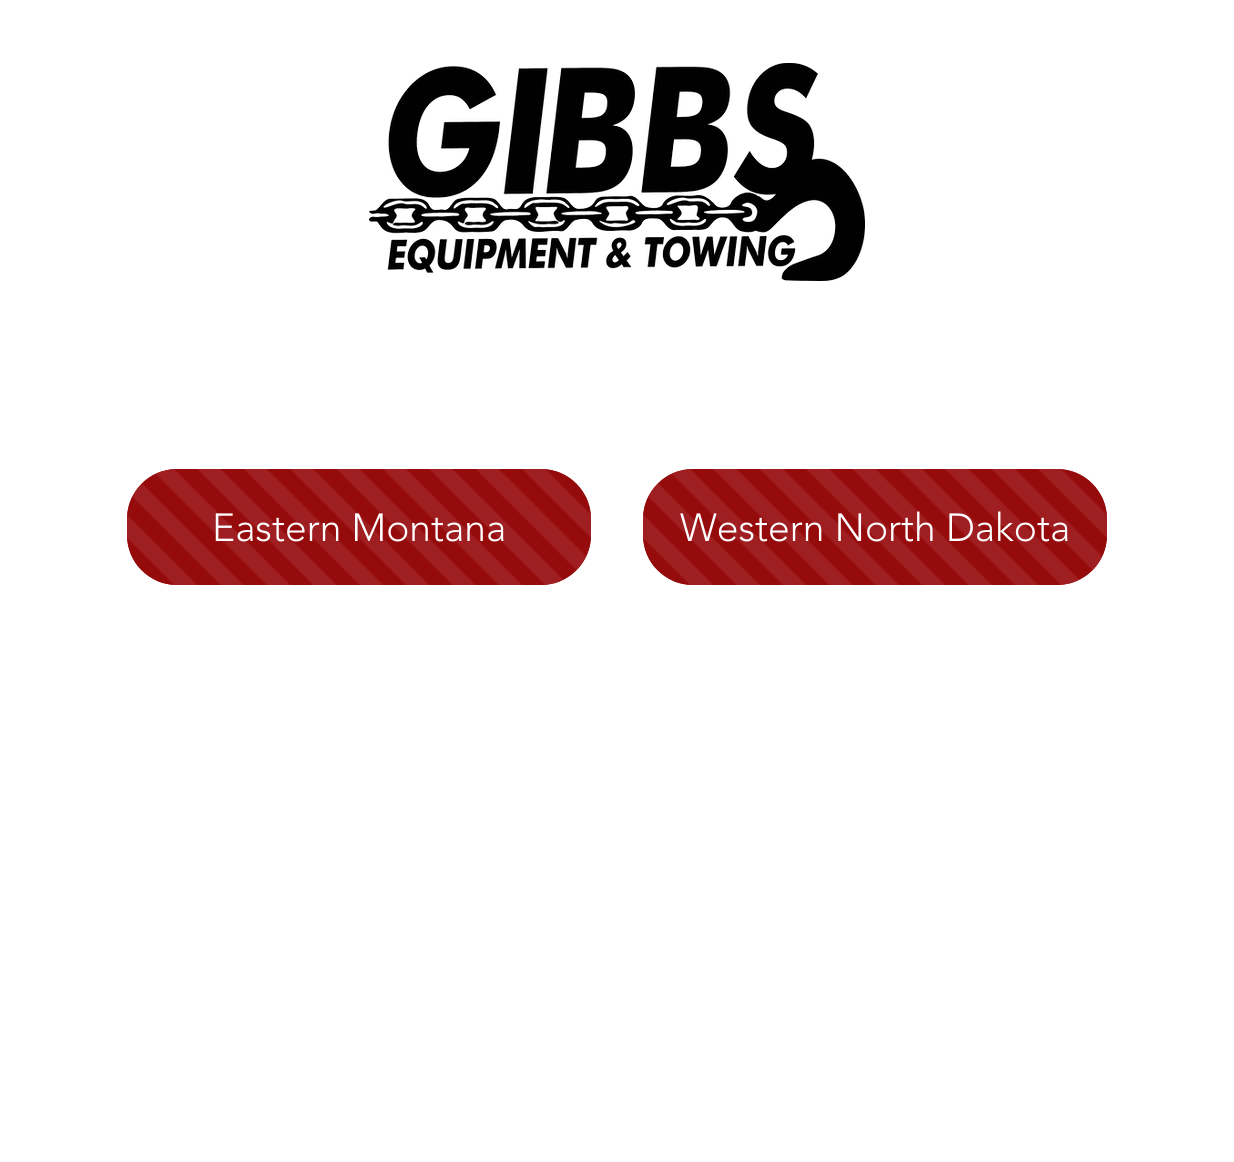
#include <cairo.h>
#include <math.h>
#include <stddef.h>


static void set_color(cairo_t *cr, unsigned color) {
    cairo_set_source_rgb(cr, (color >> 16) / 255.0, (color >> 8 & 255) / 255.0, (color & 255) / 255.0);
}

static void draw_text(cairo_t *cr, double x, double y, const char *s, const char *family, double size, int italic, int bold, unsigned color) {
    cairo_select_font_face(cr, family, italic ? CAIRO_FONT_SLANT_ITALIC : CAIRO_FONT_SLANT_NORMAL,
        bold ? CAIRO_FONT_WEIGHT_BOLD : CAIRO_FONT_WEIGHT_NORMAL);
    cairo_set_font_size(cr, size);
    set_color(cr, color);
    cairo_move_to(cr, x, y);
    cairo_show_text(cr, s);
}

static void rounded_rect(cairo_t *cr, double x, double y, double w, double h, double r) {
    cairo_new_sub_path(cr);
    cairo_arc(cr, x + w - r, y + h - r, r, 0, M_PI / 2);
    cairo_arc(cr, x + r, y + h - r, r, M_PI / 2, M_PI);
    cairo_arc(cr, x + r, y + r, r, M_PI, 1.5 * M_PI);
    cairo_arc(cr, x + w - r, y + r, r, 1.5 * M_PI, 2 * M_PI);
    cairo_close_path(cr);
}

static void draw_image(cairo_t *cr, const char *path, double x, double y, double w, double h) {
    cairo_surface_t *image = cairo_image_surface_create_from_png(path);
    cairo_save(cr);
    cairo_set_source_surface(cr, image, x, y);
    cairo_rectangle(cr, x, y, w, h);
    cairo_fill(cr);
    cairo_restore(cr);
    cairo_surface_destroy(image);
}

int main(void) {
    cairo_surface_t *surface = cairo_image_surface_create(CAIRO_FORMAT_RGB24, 1234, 1162);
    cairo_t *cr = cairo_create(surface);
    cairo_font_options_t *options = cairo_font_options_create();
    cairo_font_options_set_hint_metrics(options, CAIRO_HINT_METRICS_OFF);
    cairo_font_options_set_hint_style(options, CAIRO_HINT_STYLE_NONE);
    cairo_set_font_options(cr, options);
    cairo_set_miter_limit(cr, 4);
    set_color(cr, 0xFFFFFF);
    cairo_paint(cr);
    draw_image(cr, "assets/img1.png", 369, 63, 496, 218);
    set_color(cr, 0x950B0B);
    rounded_rect(cr, 127, 469, 464, 116, 50);
    cairo_fill(cr);
    draw_image(cr, "assets/img2.png", 127, 469, 464, 116);
    draw_text(cr, 212, 541, "Eastern Montana", "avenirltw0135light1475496 Light", 39, 0, 0, 0xFFFFFF);
    set_color(cr, 0x950B0B);
    rounded_rect(cr, 643, 469, 464, 116, 50);
    cairo_fill(cr);
    draw_image(cr, "assets/img3.png", 643, 469, 464, 116);
    draw_text(cr, 680, 541, "Western North Dakota", "avenirltw0135light1475496 Light", 39, 0, 0, 0xFFFFFF);
    cairo_surface_write_to_png(surface, "output.png");
    cairo_font_options_destroy(options);
    cairo_destroy(cr);
    cairo_surface_destroy(surface);
    return 0;
}
